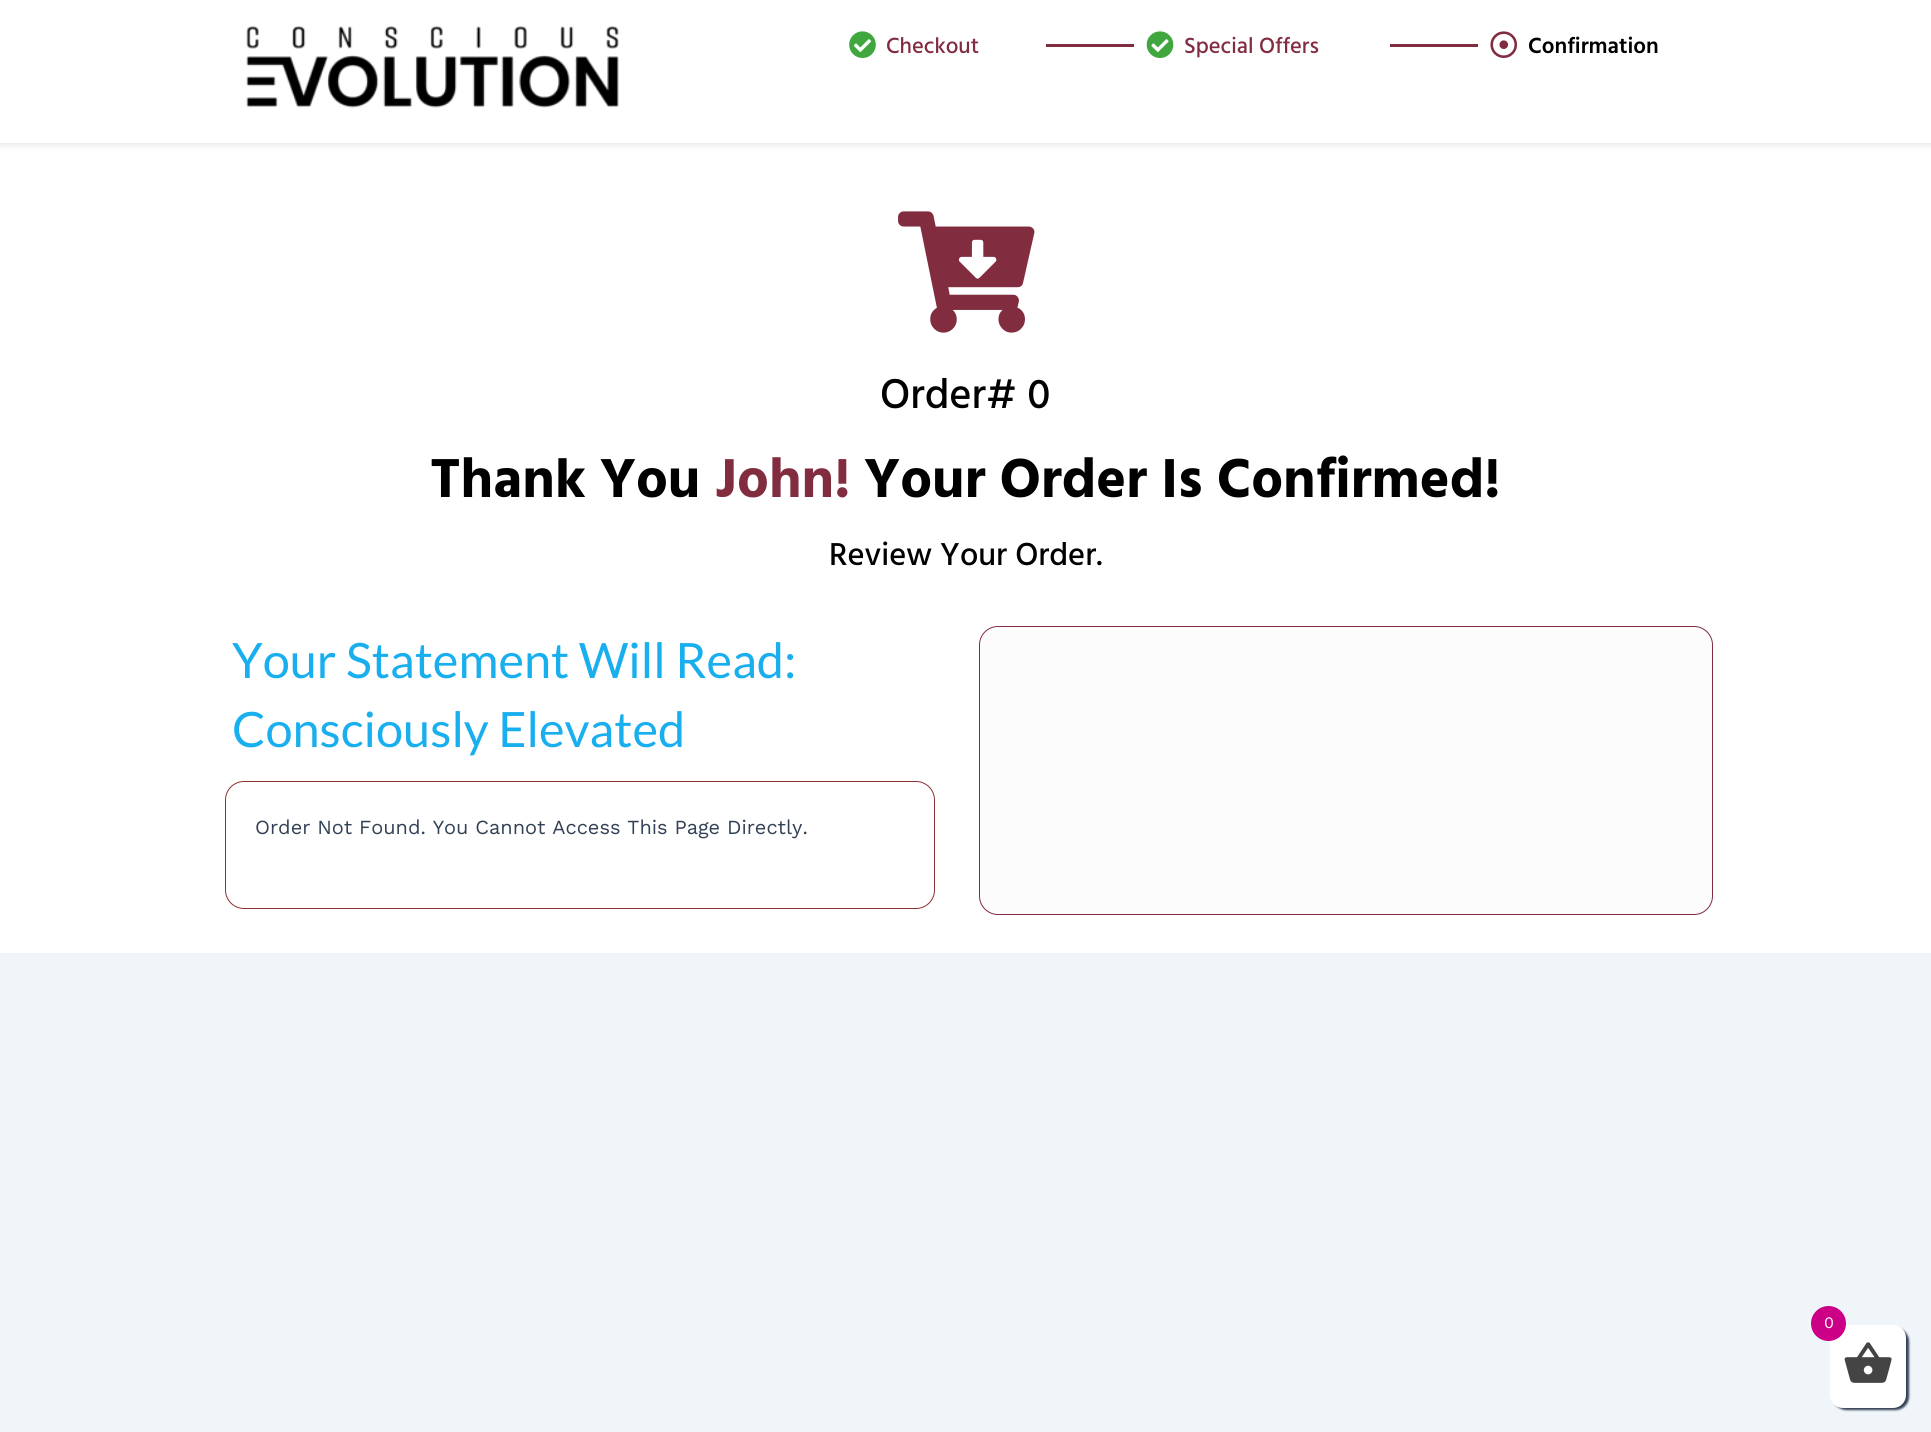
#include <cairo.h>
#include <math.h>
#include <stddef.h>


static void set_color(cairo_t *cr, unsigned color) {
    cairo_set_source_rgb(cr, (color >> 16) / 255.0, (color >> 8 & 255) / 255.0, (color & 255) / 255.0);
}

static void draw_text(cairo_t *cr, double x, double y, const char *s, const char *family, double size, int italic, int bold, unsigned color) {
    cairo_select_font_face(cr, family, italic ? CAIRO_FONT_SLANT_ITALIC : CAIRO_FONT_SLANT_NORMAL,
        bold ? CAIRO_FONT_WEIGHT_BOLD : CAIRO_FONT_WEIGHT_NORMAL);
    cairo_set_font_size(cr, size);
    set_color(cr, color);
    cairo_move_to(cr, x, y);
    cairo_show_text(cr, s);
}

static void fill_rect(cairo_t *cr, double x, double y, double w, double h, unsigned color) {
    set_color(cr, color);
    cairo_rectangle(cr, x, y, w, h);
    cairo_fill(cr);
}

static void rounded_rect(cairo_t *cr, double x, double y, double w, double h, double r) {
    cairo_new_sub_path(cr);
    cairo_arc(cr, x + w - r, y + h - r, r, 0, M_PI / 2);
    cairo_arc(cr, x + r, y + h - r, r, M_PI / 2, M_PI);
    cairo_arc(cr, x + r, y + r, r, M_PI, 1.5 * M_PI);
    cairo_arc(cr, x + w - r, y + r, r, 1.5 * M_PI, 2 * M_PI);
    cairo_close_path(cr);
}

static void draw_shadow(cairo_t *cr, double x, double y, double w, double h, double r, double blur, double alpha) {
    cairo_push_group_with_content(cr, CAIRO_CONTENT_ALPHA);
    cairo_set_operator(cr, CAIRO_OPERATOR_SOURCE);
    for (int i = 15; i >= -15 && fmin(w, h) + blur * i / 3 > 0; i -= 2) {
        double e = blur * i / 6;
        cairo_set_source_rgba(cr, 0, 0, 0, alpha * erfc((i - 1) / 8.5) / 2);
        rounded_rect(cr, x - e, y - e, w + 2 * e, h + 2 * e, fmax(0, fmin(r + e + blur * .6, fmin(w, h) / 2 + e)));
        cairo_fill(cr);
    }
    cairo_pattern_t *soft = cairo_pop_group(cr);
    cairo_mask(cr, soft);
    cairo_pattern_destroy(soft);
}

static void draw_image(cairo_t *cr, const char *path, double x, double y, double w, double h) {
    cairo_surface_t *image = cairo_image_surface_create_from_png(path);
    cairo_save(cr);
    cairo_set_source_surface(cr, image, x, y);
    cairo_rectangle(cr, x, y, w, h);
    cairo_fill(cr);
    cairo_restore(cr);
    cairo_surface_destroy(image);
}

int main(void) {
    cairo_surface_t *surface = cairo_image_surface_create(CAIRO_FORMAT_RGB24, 1931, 1432);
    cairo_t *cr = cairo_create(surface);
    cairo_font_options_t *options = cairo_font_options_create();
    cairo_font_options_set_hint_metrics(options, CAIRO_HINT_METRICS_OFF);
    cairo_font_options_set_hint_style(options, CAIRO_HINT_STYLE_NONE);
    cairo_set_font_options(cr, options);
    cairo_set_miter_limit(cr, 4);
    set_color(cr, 0xF0F5FA);
    cairo_paint(cr);
    fill_rect(cr, 0, 143, 1931, 810, 0xFFFFFF);
    set_color(cr, 0x000000);
    draw_shadow(cr, -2, -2, 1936, 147, 0, 3, 0.1);
    fill_rect(cr, 0, 0, 1931, 143, 0xFFFFFF);
    draw_image(cr, "assets/img1.png", 246, 26, 373, 82);
    draw_image(cr, "assets/img2.png", 849, 31, 27, 27);
    draw_text(cr, 886, 53, "Checkout", "Hind Medium", 22.5, 0, 0, 0x822C40);
    fill_rect(cr, 1046, 44, 88, 3, 0x822C40);
    draw_image(cr, "assets/img3.png", 1146, 31, 28, 27);
    draw_text(cr, 1184, 53, "Special Offers", "Hind Medium", 22.5, 0, 0, 0x822C40);
    fill_rect(cr, 1390, 44, 88, 3, 0x822C40);
    draw_image(cr, "assets/img4.png", 1490, 31, 28, 27);
    draw_text(cr, 1528, 53, "Confirmation", "Hind SemiBold", 22.5, 0, 0, 0x000000);
    draw_image(cr, "assets/img5.png", 898, 211, 137, 122);
    draw_text(cr, 880, 408, "Order# 0", "Hind Medium", 42.5, 0, 0, 0x000000);
    draw_text(cr, 430, 497, "Thank You", "Hind", 56.25, 0, 1, 0x000000);
    draw_text(cr, 715, 497, "John!", "Hind", 56.25, 0, 1, 0x822C40);
    draw_text(cr, 864, 497, "Your Order Is Confirmed!", "Hind", 56.25, 0, 1, 0x000000);
    draw_text(cr, 829, 565, "Review Your Order.", "Hind Medium", 32.5, 0, 0, 0x000000);
    draw_text(cr, 232, 678, "Your Statement Will Read:", "Lato", 48.75, 0, 0, 0x19AFEF);
    draw_text(cr, 232, 747, "Consciously Elevated", "Lato", 48.75, 0, 0, 0x19AFEF);
    rounded_rect(cr, 225.5, 781.5, 709, 127, 18.5);
    set_color(cr, 0x8B3131);
    cairo_set_line_width(cr, 1);
    cairo_stroke(cr);
    draw_text(cr, 255, 834, "Order Not Found. You Cannot Access This Page Directly.", "Work Sans", 20, 0, 0, 0x334155);
    set_color(cr, 0xFCFCFC);
    rounded_rect(cr, 979.5, 626.5, 733, 288, 18.5);
    cairo_fill_preserve(cr);
    set_color(cr, 0x822C40);
    cairo_stroke(cr);
    set_color(cr, 0x334155);
    draw_shadow(cr, 1833, 1328, 76, 82, 13, 1, 1);
    set_color(cr, 0xFFFFFF);
    rounded_rect(cr, 1830, 1325, 76, 83, 13);
    cairo_fill(cr);
    set_color(cr, 0xCC0086);
    cairo_arc(cr, 1828.5, 1323.5, 17.5, 0, 2 * M_PI);
    cairo_fill(cr);
    draw_text(cr, 1824, 1328, "0", "Work Sans", 16, 0, 0, 0xFFFFFF);
    draw_image(cr, "assets/img6.png", 1844, 1342, 48, 41);
    cairo_surface_write_to_png(surface, "output.png");
    cairo_font_options_destroy(options);
    cairo_destroy(cr);
    cairo_surface_destroy(surface);
    return 0;
}
